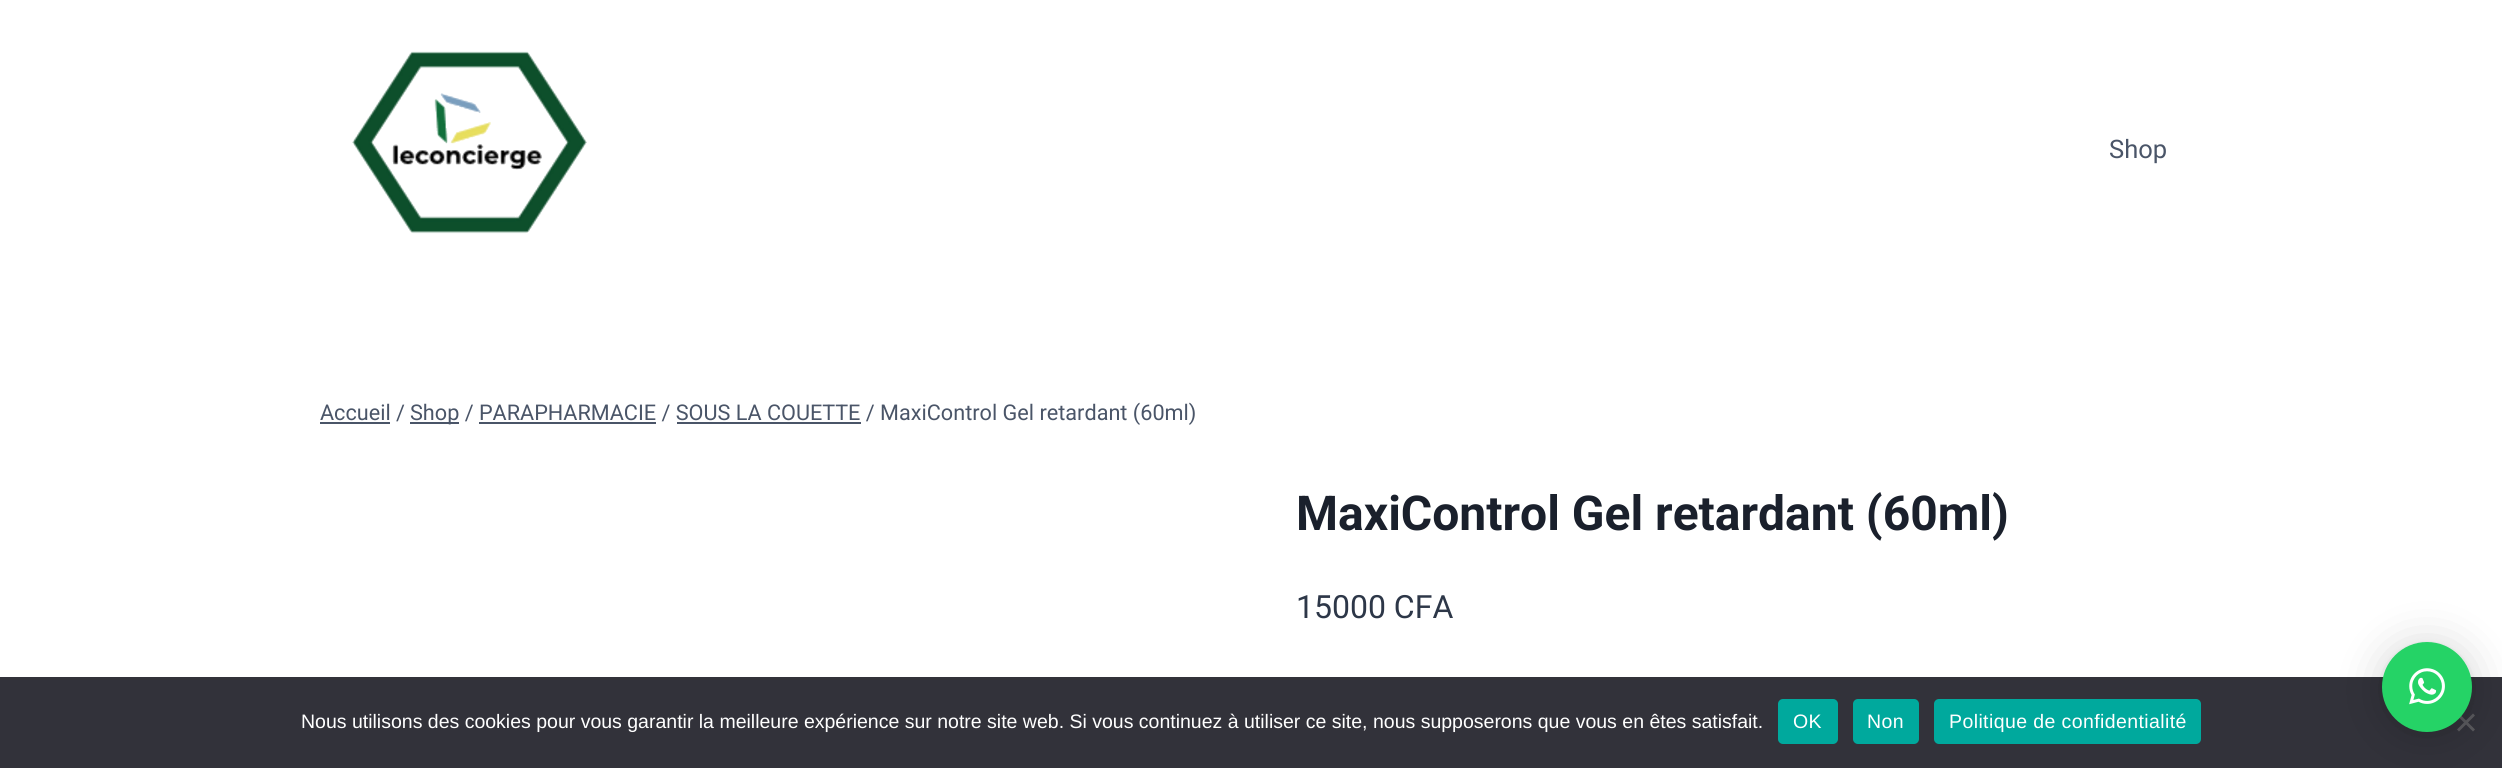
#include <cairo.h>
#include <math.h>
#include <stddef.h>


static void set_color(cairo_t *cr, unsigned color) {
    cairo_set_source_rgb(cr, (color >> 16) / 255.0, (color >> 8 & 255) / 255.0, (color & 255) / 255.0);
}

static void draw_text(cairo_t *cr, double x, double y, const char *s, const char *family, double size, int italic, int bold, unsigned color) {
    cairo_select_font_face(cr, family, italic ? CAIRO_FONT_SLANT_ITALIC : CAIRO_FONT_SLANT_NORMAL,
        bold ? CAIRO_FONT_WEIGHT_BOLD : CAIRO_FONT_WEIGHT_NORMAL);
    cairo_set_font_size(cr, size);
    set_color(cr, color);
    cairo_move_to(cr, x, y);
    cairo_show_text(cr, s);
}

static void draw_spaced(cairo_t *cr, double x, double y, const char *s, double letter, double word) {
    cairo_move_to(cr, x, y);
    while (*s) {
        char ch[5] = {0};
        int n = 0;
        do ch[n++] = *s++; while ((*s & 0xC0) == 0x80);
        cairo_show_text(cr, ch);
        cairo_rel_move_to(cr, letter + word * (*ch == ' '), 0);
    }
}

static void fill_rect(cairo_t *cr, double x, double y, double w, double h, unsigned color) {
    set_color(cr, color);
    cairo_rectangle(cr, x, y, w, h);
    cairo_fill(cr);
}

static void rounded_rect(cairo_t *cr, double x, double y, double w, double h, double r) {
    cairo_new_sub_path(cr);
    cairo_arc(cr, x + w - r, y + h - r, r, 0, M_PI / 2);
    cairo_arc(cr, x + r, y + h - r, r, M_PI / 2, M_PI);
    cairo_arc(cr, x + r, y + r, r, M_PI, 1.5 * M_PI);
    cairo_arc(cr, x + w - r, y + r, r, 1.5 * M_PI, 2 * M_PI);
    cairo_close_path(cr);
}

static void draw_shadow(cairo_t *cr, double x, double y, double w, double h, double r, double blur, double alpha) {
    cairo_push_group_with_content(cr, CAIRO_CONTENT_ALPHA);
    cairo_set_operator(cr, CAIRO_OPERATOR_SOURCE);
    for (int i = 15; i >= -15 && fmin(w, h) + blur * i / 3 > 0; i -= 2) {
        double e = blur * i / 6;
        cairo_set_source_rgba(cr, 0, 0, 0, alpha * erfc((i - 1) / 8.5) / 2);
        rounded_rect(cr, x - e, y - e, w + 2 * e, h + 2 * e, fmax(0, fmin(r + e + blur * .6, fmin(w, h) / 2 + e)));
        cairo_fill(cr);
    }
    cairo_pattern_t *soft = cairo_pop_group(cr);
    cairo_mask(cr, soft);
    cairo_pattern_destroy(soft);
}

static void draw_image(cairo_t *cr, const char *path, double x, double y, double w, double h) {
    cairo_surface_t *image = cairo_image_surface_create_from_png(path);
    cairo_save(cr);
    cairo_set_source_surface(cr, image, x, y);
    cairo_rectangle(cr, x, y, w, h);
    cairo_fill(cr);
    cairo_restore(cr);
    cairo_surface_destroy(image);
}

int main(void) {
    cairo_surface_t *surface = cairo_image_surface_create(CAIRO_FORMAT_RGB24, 2502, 768);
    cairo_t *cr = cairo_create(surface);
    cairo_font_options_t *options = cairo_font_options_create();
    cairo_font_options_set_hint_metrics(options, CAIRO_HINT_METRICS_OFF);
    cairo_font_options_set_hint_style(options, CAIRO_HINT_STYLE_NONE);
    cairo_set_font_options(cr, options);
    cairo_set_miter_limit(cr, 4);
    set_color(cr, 0xFFFFFF);
    cairo_paint(cr);
    draw_image(cr, "assets/img1.png", 352, 51, 235, 183);
    draw_text(cr, 2109, 158, "Shop", "Roboto", 25.5, 0, 0, 0x4A5568);
    draw_text(cr, 320, 420, "Accueil /", "Roboto", 21.65, 0, 0, 0x4A5568);
    fill_rect(cr, 320, 422, 70, 2, 0x4A5568);
    fill_rect(cr, 410, 422, 49, 2, 0x4A5568);
    draw_text(cr, 410, 420, "Shop / PARAPHARMACIE / SOUS LA COUETTE / MaxiControl Gel retardant (60ml)", "Roboto", 21.65, 0, 0, 0x4A5568);
    fill_rect(cr, 479, 422, 177, 2, 0x4A5568);
    fill_rect(cr, 677, 422, 184, 2, 0x4A5568);
    draw_text(cr, 1296, 530, "MaxiControl Gel retardant (60ml)", "Roboto", 48, 0, 1, 0x1A202C);
    draw_text(cr, 1296, 618, "15000 CFA", "Roboto", 32, 0, 0, 0x2D3748);
    fill_rect(cr, 0, 677, 2502, 91, 0x32323A);
    draw_text(cr, 301, 728, "Nous utilisons des cookies pour vous garantir la meilleure expérience sur notre site web. Si vous continuez à utiliser ce site, nous supposerons que vous en êtes satisfait.", "Liberation Sans", 19.5, 0, 0, 0xFFFFFF);
    set_color(cr, 0x00A99D);
    rounded_rect(cr, 1778, 699, 60, 45, 5);
    cairo_fill(cr);
    set_color(cr, 0xFFFFFF);
    draw_spaced(cr, 1793, 728, "OK", 0.4, 0);
    set_color(cr, 0x00A99D);
    rounded_rect(cr, 1853, 699, 66, 45, 5);
    cairo_fill(cr);
    set_color(cr, 0xFFFFFF);
    draw_spaced(cr, 1867, 728, "Non", 0.4, 0);
    set_color(cr, 0x00A99D);
    rounded_rect(cr, 1934, 699, 267, 45, 5);
    cairo_fill(cr);
    set_color(cr, 0xFFFFFF);
    draw_spaced(cr, 1949, 728, "Politique de confidentialité", 0.4, 0);
    set_color(cr, 0x59595D);
    cairo_new_path(cr);
    cairo_move_to(cr, 2473, 713.5);
    cairo_line_to(cr, 2475, 715.5);
    cairo_line_to(cr, 2459, 731.5);
    cairo_line_to(cr, 2457, 729.5);
    cairo_close_path(cr);
    cairo_fill(cr);
    cairo_new_path(cr);
    cairo_move_to(cr, 2457, 715.5);
    cairo_line_to(cr, 2459, 713.5);
    cairo_line_to(cr, 2475, 729.5);
    cairo_line_to(cr, 2473, 731.5);
    cairo_close_path(cr);
    cairo_fill(cr);
    set_color(cr, 0x000000);
    draw_shadow(cr, 2382, 645, 90, 90, 45, 24, 0.16);
    draw_shadow(cr, 2382, 644, 90, 90, 45, 4.5, 0.06);
    set_color(cr, 0x25D366);
    cairo_arc(cr, 2427, 687, 45, 0, 2 * M_PI);
    cairo_fill(cr);
    draw_image(cr, "assets/img2.png", 2409, 668, 36, 37);
    cairo_surface_write_to_png(surface, "output.png");
    cairo_font_options_destroy(options);
    cairo_destroy(cr);
    cairo_surface_destroy(surface);
    return 0;
}
